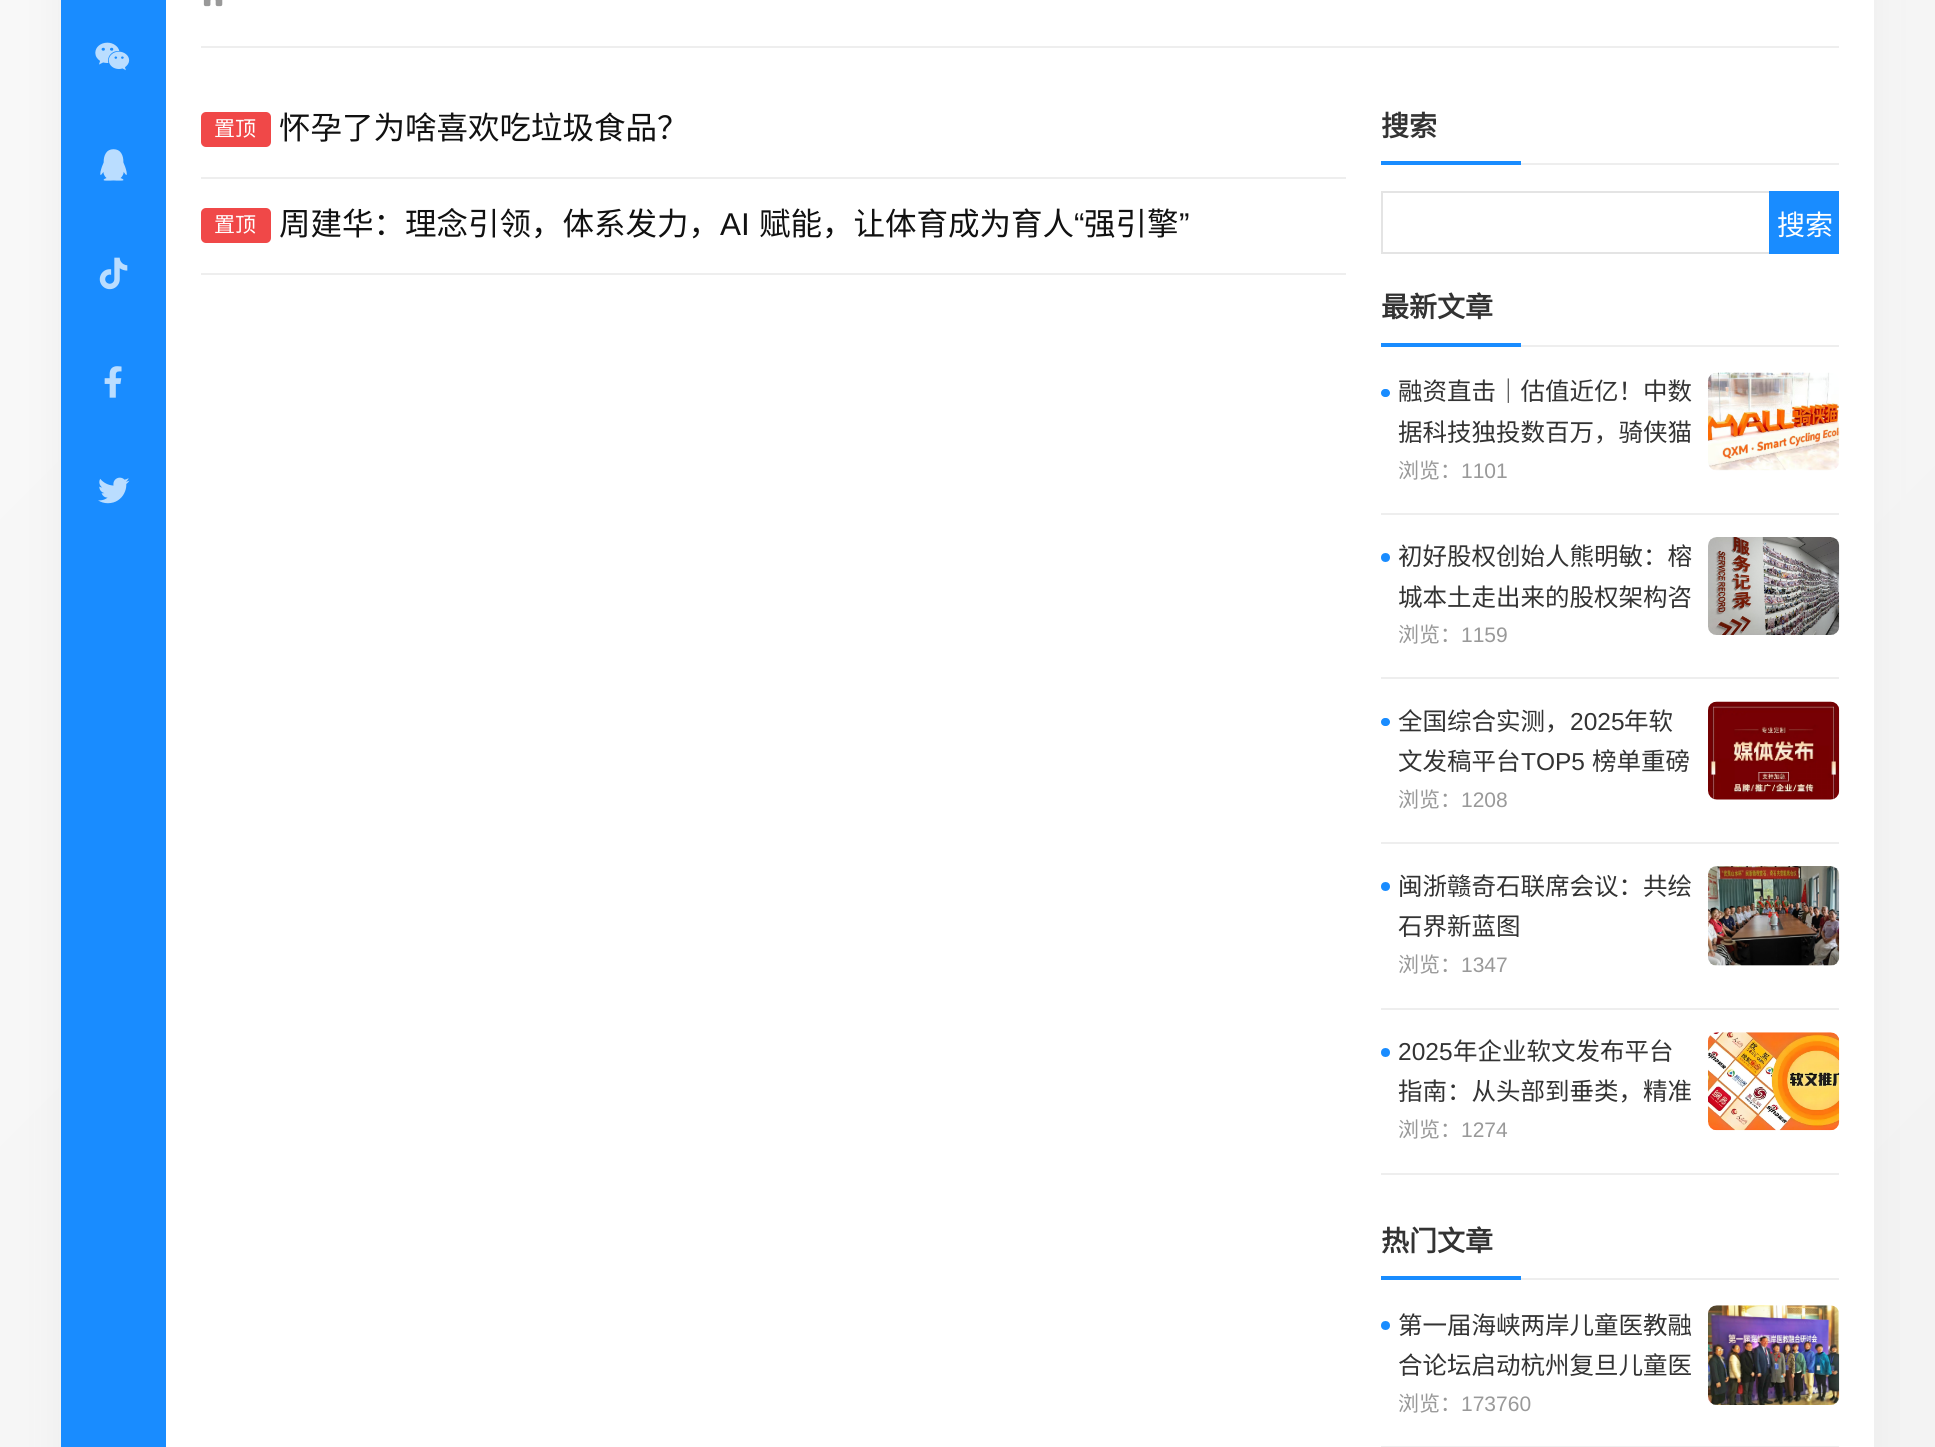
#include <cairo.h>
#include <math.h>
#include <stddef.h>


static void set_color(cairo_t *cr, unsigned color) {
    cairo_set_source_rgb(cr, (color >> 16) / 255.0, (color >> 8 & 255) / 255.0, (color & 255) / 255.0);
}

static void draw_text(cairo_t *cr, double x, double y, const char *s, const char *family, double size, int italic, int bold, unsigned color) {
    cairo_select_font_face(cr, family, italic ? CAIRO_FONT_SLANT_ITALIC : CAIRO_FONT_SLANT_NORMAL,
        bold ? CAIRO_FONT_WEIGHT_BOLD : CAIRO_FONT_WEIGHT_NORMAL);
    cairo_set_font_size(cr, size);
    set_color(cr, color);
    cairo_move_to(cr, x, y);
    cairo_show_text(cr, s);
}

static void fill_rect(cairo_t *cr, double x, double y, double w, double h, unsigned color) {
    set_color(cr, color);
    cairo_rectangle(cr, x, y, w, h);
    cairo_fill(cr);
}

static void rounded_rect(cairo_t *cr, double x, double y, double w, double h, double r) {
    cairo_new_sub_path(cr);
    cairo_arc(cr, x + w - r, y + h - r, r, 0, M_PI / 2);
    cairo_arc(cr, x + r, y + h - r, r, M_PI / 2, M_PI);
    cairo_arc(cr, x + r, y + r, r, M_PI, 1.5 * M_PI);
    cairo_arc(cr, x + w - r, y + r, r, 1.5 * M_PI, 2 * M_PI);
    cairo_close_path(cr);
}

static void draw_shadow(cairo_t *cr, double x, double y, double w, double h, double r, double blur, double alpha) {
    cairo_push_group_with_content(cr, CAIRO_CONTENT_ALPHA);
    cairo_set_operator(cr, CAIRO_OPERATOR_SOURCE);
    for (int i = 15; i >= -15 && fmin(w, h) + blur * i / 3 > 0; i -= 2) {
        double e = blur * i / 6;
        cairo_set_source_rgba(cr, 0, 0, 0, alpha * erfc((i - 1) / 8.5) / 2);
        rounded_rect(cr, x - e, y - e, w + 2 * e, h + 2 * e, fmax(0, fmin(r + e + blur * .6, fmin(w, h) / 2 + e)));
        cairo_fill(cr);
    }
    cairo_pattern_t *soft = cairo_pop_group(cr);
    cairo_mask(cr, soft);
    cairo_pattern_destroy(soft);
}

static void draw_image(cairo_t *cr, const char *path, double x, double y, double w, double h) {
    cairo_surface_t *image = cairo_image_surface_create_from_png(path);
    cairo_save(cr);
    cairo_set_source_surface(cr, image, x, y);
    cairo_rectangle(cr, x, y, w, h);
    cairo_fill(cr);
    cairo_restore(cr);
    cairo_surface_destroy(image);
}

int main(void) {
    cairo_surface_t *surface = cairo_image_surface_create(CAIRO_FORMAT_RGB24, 1935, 1447);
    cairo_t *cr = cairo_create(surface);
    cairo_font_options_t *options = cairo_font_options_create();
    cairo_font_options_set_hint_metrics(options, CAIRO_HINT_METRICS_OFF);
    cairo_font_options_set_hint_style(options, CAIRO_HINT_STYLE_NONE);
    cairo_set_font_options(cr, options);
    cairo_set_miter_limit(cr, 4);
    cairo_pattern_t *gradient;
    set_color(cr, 0xFFFFFF);
    cairo_paint(cr);
    gradient = cairo_pattern_create_linear(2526, 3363, -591, 246);
    cairo_pattern_add_color_stop_rgba(gradient, 0, 0.937, 0.937, 0.937, 1);
    cairo_pattern_add_color_stop_rgba(gradient, 1, 0.976, 0.976, 0.976, 1);
    cairo_set_source(cr, gradient);
    cairo_pattern_destroy(gradient);
    cairo_rectangle(cr, 0, 0, 1935, 1447);
    cairo_fill(cr);
    set_color(cr, 0xEDEDED);
    draw_shadow(cr, 61, -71, 1813, 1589, 18, 17.5, 1);
    fill_rect(cr, 166, 0, 1708, 1447, 0xFFFFFF);
    fill_rect(cr, 61, 0, 105, 1447, 0x198CFF);
    draw_image(cr, "assets/img1.png", 95, 42, 35, 29);
    draw_image(cr, "assets/img2.png", 100, 149, 27, 32);
    draw_image(cr, "assets/img3.png", 99, 257, 29, 33);
    draw_image(cr, "assets/img4.png", 104, 366, 18, 32);
    draw_image(cr, "assets/img5.png", 98, 477, 32, 27);
    fill_rect(cr, 201, 46, 1638, 2, 0xEEEEEE);
    draw_image(cr, "assets/img6.png", 203, 0, 20, 7);
    fill_rect(cr, 201, 177, 1145, 2, 0xEEEEEE);
    set_color(cr, 0xF04848);
    rounded_rect(cr, 201, 112, 70, 35, 5);
    cairo_fill(cr);
    draw_text(cr, 214, 136, "置顶", "Noto Sans CJK SC", 21, 0, 0, 0xFFFFFF);
    draw_text(cr, 279, 139, "怀孕了为啥喜欢吃垃圾食品？", "Noto Sans CJK SC", 31.5, 0, 0, 0x111111);
    fill_rect(cr, 201, 273, 1145, 2, 0xEEEEEE);
    set_color(cr, 0xF04848);
    rounded_rect(cr, 201, 208, 70, 35, 5);
    cairo_fill(cr);
    draw_text(cr, 214, 232, "置顶", "Noto Sans CJK SC", 21, 0, 0, 0xFFFFFF);
    draw_text(cr, 279, 235, "周建华：理念引领，体系发力，", "Noto Sans CJK SC", 31.5, 0, 0, 0x111111);
    draw_text(cr, 720, 235, "AI", "Liberation Sans", 31.5, 0, 0, 0x111111);
    draw_text(cr, 759, 235, "赋能，让体育成为育人", "Noto Sans CJK SC", 31.5, 0, 0, 0x111111);
    draw_text(cr, 1074, 235, "“", "Liberation Sans", 31.5, 0, 0, 0x111111);
    draw_text(cr, 1084, 235, "强引擎", "Noto Sans CJK SC", 31.5, 0, 0, 0x111111);
    draw_text(cr, 1179, 235, "”", "Liberation Sans", 31.5, 0, 0, 0x111111);
    fill_rect(cr, 1521, 163, 318, 2, 0xEEEEEE);
    draw_text(cr, 1381, 136, "搜索", "Noto Sans CJK SC", 28, 0, 1, 0x333333);
    fill_rect(cr, 1381, 161, 140, 4, 0x198CFF);
    cairo_rectangle(cr, 1382, 192, 390, 61);
    set_color(cr, 0xE4E4E4);
    cairo_stroke(cr);
    fill_rect(cr, 1769, 191, 70, 63, 0x198CFF);
    draw_text(cr, 1777, 235, "搜索", "Noto Sans CJK SC", 28, 0, 0, 0xFFFFFF);
    fill_rect(cr, 1521, 345, 318, 2, 0xEEEEEE);
    draw_text(cr, 1381, 317, "最新文章", "Noto Sans CJK SC", 28, 0, 1, 0x333333);
    fill_rect(cr, 1381, 343, 140, 4, 0x198CFF);
    fill_rect(cr, 1381, 513, 458, 2, 0xEEEEEE);
    set_color(cr, 0x198CFF);
    rounded_rect(cr, 1381, 389, 9, 8, 4);
    cairo_fill(cr);
    draw_text(cr, 1398, 400, "融资直击｜估值近亿！中数", "Noto Sans CJK SC", 24.5, 0, 0, 0x333333);
    draw_text(cr, 1398, 441, "据科技独投数百万，骑侠猫", "Noto Sans CJK SC", 24.5, 0, 0, 0x333333);
    draw_text(cr, 1398, 478, "浏览：", "Noto Sans CJK SC", 21, 0, 0, 0x999999);
    draw_text(cr, 1461, 478, "1101", "Liberation Sans", 21, 0, 0, 0x999999);
    draw_image(cr, "assets/img7.png", 1708, 372, 132, 99);
    fill_rect(cr, 1381, 677, 458, 2, 0xEEEEEE);
    set_color(cr, 0x198CFF);
    cairo_arc(cr, 1385.5, 557.5, 4.5, 0, 2 * M_PI);
    cairo_fill(cr);
    draw_text(cr, 1398, 565, "初好股权创始人熊明敏：榕", "Noto Sans CJK SC", 24.5, 0, 0, 0x333333);
    draw_text(cr, 1398, 606, "城本土走出来的股权架构咨", "Noto Sans CJK SC", 24.5, 0, 0, 0x333333);
    draw_text(cr, 1398, 642, "浏览：", "Noto Sans CJK SC", 21, 0, 0, 0x999999);
    draw_text(cr, 1461, 642, "1159", "Liberation Sans", 21, 0, 0, 0x999999);
    draw_image(cr, "assets/img8.png", 1708, 537, 132, 98);
    fill_rect(cr, 1381, 842, 458, 2, 0xEEEEEE);
    set_color(cr, 0x198CFF);
    rounded_rect(cr, 1381, 718, 9, 8, 4);
    cairo_fill(cr);
    draw_text(cr, 1398, 730, "全国综合实测，", "Noto Sans CJK SC", 24.5, 0, 0, 0x333333);
    draw_text(cr, 1570, 730, "2025", "Liberation Sans", 24.5, 0, 0, 0x333333);
    draw_text(cr, 1624, 730, "年软", "Noto Sans CJK SC", 24.5, 0, 0, 0x333333);
    draw_text(cr, 1398, 770, "文发稿平台", "Noto Sans CJK SC", 24.5, 0, 0, 0x333333);
    draw_text(cr, 1521, 770, "TOP5", "Liberation Sans", 24.5, 0, 0, 0x333333);
    draw_text(cr, 1592, 770, "榜单重磅", "Noto Sans CJK SC", 24.5, 0, 0, 0x333333);
    draw_text(cr, 1398, 807, "浏览：", "Noto Sans CJK SC", 21, 0, 0, 0x999999);
    draw_text(cr, 1461, 807, "1208", "Liberation Sans", 21, 0, 0, 0x999999);
    draw_image(cr, "assets/img9.png", 1708, 701, 132, 99);
    fill_rect(cr, 1381, 1008, 458, 2, 0xEEEEEE);
    set_color(cr, 0x198CFF);
    cairo_arc(cr, 1385.5, 886.5, 4.5, 0, 2 * M_PI);
    cairo_fill(cr);
    draw_text(cr, 1398, 895, "闽浙赣奇石联席会议：共绘", "Noto Sans CJK SC", 24.5, 0, 0, 0x333333);
    draw_text(cr, 1398, 935, "石界新蓝图", "Noto Sans CJK SC", 24.5, 0, 0, 0x333333);
    draw_text(cr, 1398, 972, "浏览：", "Noto Sans CJK SC", 21, 0, 0, 0x999999);
    draw_text(cr, 1461, 972, "1347", "Liberation Sans", 21, 0, 0, 0x999999);
    draw_image(cr, "assets/img10.png", 1708, 866, 132, 100);
    fill_rect(cr, 1381, 1173, 458, 2, 0xEEEEEE);
    set_color(cr, 0x198CFF);
    cairo_arc(cr, 1385.5, 1052.5, 4.5, 0, 2 * M_PI);
    cairo_fill(cr);
    draw_text(cr, 1398, 1060, "2025", "Liberation Sans", 24.5, 0, 0, 0x333333);
    draw_text(cr, 1453, 1060, "年企业软文发布平台", "Noto Sans CJK SC", 24.5, 0, 0, 0x333333);
    draw_text(cr, 1398, 1100, "指南：从头部到垂类，精准", "Noto Sans CJK SC", 24.5, 0, 0, 0x333333);
    draw_text(cr, 1398, 1137, "浏览：", "Noto Sans CJK SC", 21, 0, 0, 0x999999);
    draw_text(cr, 1461, 1137, "1274", "Liberation Sans", 21, 0, 0, 0x999999);
    draw_image(cr, "assets/img11.png", 1708, 1032, 132, 99);
    fill_rect(cr, 1521, 1278, 318, 2, 0xEEEEEE);
    draw_text(cr, 1381, 1251, "热门文章", "Noto Sans CJK SC", 28, 0, 1, 0x333333);
    fill_rect(cr, 1381, 1276, 140, 4, 0x198CFF);
    fill_rect(cr, 1381, 1446, 458, 1, 0xEEEEEE);
    set_color(cr, 0x198CFF);
    cairo_new_path(cr);
    cairo_arc(cr, 1385.5, 1325.5, 4.5, 0, 2 * M_PI);
    cairo_fill(cr);
    draw_text(cr, 1398, 1334, "第一届海峡两岸儿童医教融", "Noto Sans CJK SC", 24.5, 0, 0, 0x333333);
    draw_text(cr, 1398, 1374, "合论坛启动杭州复旦儿童医", "Noto Sans CJK SC", 24.5, 0, 0, 0x333333);
    draw_text(cr, 1398, 1411, "浏览：", "Noto Sans CJK SC", 21, 0, 0, 0x999999);
    draw_text(cr, 1461, 1411, "173760", "Liberation Sans", 21, 0, 0, 0x999999);
    draw_image(cr, "assets/img12.png", 1708, 1305, 132, 100);
    cairo_surface_write_to_png(surface, "output.png");
    cairo_font_options_destroy(options);
    cairo_destroy(cr);
    cairo_surface_destroy(surface);
    return 0;
}
